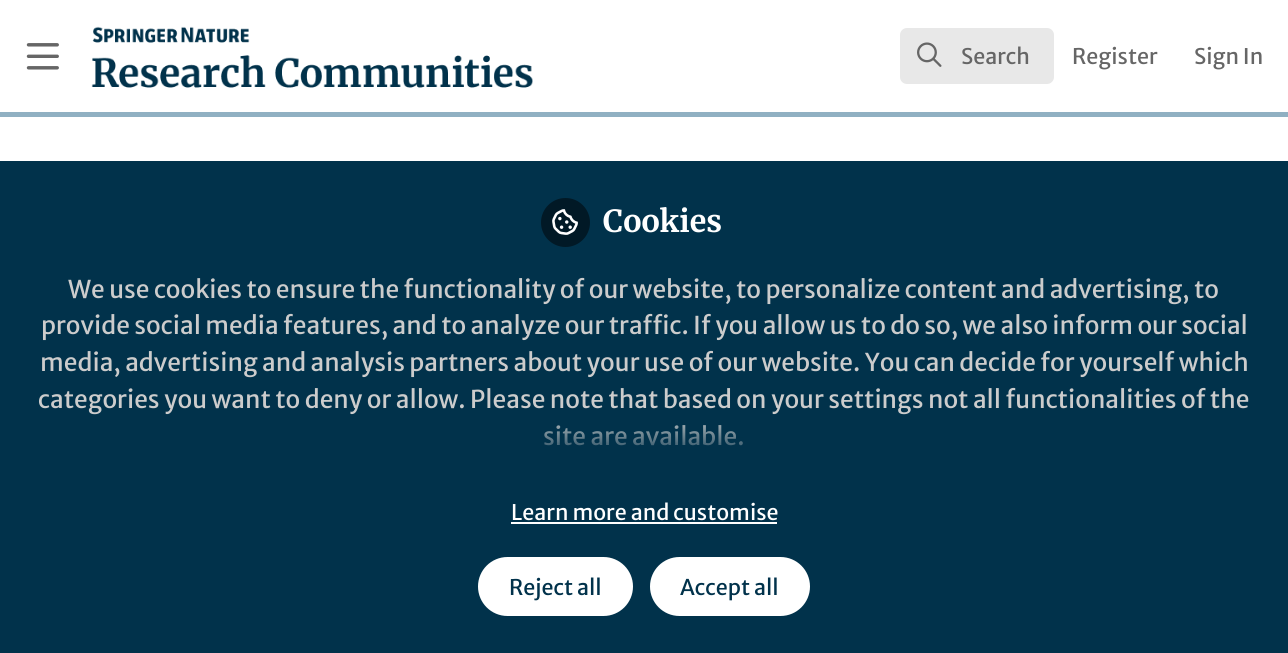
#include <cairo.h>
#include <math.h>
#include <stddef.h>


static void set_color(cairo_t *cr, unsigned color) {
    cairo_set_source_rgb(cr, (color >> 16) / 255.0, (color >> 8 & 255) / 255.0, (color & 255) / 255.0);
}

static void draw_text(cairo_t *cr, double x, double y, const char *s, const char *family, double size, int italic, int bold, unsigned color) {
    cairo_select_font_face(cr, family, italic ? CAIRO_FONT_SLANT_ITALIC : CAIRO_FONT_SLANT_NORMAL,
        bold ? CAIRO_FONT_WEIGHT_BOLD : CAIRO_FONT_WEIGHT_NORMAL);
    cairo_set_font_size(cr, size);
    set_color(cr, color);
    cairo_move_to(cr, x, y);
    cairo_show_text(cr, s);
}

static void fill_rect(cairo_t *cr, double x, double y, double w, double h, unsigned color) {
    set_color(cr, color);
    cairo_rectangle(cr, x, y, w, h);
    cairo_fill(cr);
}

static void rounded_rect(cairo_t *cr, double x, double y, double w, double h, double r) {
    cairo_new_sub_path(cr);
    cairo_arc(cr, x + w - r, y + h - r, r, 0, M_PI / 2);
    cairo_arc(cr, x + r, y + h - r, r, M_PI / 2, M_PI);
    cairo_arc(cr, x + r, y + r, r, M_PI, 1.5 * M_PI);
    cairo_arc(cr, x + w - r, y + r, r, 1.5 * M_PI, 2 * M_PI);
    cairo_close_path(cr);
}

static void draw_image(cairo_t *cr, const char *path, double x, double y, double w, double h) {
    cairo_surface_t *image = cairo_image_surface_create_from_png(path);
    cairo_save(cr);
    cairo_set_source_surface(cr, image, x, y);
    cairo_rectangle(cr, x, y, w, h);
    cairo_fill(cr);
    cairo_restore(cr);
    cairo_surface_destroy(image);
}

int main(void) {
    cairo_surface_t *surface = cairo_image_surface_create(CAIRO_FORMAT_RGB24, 1288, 653);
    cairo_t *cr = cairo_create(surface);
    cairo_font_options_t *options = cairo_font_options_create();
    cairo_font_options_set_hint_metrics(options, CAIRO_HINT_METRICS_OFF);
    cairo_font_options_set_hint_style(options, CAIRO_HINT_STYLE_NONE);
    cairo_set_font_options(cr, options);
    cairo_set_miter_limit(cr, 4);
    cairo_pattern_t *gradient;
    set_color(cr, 0xFFFFFF);
    cairo_paint(cr);
    fill_rect(cr, 0, 112, 1288, 5, 0x90B0C2);
    draw_image(cr, "assets/img1.png", 26, 43, 33, 27);
    draw_image(cr, "assets/img2.png", 91, 26, 442, 62);
    set_color(cr, 0xE8E8E8);
    rounded_rect(cr, 900, 28, 154, 56, 7);
    cairo_fill(cr);
    draw_image(cr, "assets/img3.png", 917, 42, 25, 25);
    draw_text(cr, 961, 64, "Search", "Merriweather Sans", 21.5, 0, 0, 0x666666);
    draw_text(cr, 1072, 64, "Register", "Merriweather Sans", 21.5, 0, 0, 0x666666);
    draw_text(cr, 1194, 64, "Sign In", "Merriweather Sans", 21.5, 0, 0, 0x666666);
    fill_rect(cr, 0, 161, 1288, 492, 0x01324B);
    set_color(cr, 0x011926);
    cairo_new_path(cr);
    cairo_arc(cr, 565.5, 222.5, 24.5, 0, 2 * M_PI);
    cairo_fill(cr);
    draw_image(cr, "assets/img4.png", 552, 209, 26, 26);
    draw_text(cr, 603, 232, "Cookies", "Merriweather", 30.5, 0, 1, 0xFFFFFF);
    draw_text(cr, 68, 298, "We use cookies to ensure the functionality of our website, to personalize content and advertising, to", "Merriweather Sans", 24.5, 0, 0, 0xCCCCCC);
    draw_text(cr, 41, 334, "provide social media features, and to analyze our traffic. If you allow us to do so, we also inform our social", "Merriweather Sans", 24.5, 0, 0, 0xCCCCCC);
    draw_text(cr, 40, 371, "media, advertising and analysis partners about your use of our website. You can decide for yourself which", "Merriweather Sans", 24.5, 0, 0, 0xCCCCCC);
    draw_text(cr, 38, 408, "categories you want to deny or allow. Please note that based on your settings not all functionalities of the", "Merriweather Sans", 24.5, 0, 0, 0xCCCCCC);
    draw_text(cr, 543, 445, "site are available.", "Merriweather Sans", 24.5, 0, 0, 0xCCCCCC);
    gradient = cairo_pattern_create_linear(644, 462, 644, 413);
    cairo_pattern_add_color_stop_rgba(gradient, 0, 0.004, 0.196, 0.294, 1);
    cairo_pattern_add_color_stop_rgba(gradient, 1, 0.004, 0.196, 0.294, 0);
    cairo_set_source(cr, gradient);
    cairo_pattern_destroy(gradient);
    cairo_rectangle(cr, 544, 425, 199, 21);
    cairo_fill(cr);
    draw_text(cr, 511, 520, "Learn more and customise", "Merriweather Sans", 21.5, 0, 0, 0xFFFFFF);
    fill_rect(cr, 511, 522, 266, 2, 0xFFFFFF);
    rounded_rect(cr, 477, 556, 157, 61, 30.5);
    cairo_fill_preserve(cr);
    set_color(cr, 0x01324B);
    cairo_stroke(cr);
    draw_text(cr, 509, 595, "Reject all", "Merriweather Sans", 21.5, 0, 0, 0x01324B);
    set_color(cr, 0xFFFFFF);
    rounded_rect(cr, 649, 556, 162, 61, 30.5);
    cairo_fill_preserve(cr);
    set_color(cr, 0x01324B);
    cairo_stroke(cr);
    draw_text(cr, 680, 595, "Accept all", "Merriweather Sans", 21.5, 0, 0, 0x01324B);
    cairo_surface_write_to_png(surface, "output.png");
    cairo_font_options_destroy(options);
    cairo_destroy(cr);
    cairo_surface_destroy(surface);
    return 0;
}
